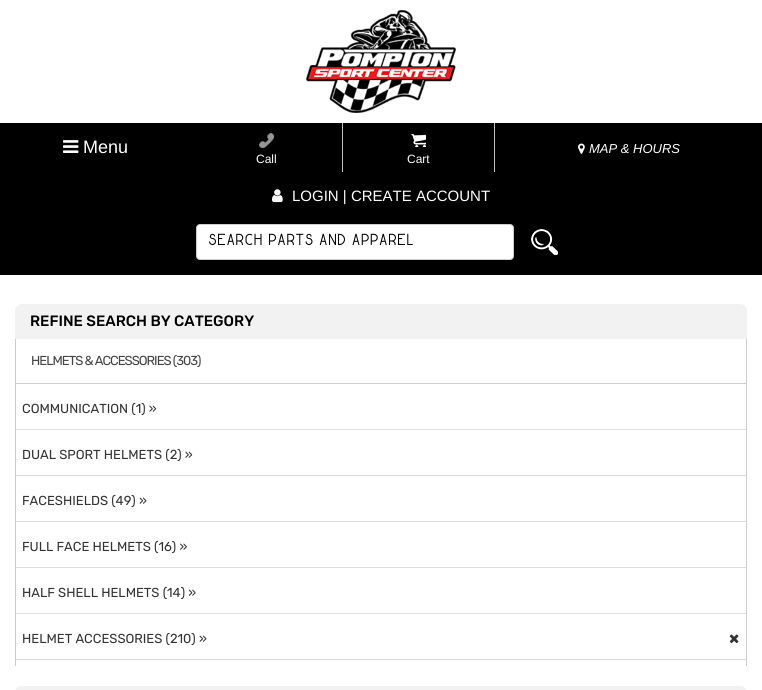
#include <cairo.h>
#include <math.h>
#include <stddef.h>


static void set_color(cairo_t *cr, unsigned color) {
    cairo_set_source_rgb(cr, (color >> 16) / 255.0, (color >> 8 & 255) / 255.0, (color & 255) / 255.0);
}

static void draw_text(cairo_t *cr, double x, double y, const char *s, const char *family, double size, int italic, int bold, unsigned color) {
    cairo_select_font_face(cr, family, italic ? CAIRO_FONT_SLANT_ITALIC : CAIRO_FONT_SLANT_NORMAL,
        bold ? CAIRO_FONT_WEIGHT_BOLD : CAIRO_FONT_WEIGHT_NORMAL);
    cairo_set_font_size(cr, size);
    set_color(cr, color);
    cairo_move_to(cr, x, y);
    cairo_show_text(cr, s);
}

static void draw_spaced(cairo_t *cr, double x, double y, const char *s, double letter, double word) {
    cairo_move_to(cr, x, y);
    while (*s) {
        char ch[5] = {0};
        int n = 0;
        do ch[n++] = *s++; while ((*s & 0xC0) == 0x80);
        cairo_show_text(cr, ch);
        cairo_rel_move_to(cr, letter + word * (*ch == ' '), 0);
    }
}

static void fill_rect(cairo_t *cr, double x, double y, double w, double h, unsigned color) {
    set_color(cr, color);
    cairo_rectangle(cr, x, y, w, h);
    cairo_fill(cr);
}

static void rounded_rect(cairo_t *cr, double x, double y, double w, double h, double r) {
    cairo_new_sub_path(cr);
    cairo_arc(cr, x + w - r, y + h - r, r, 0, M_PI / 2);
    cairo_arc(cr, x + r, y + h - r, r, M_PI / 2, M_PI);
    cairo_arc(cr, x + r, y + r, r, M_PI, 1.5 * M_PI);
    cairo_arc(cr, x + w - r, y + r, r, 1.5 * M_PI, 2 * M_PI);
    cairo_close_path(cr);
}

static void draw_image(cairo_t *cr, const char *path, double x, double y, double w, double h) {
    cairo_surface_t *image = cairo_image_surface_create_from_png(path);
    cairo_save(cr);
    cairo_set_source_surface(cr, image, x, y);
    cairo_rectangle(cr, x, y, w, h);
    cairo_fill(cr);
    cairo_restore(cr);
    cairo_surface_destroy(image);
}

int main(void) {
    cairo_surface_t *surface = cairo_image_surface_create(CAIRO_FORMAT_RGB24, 762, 690);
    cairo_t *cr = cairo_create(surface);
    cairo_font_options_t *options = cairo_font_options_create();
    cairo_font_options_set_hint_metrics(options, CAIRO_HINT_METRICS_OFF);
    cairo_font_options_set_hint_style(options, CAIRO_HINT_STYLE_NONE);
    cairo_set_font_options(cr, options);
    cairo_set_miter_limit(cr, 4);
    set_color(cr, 0xFFFFFF);
    cairo_paint(cr);
    fill_rect(cr, 0, 123, 762, 152, 0x000000);
    draw_image(cr, "assets/img1.png", 306, 10, 150, 103);
    draw_image(cr, "assets/img2.png", 63, 140, 16, 13);
    draw_text(cr, 83, 153, "Menu", "Liberation Sans", 18, 0, 0, 0xFFFFFF);
    draw_image(cr, "assets/img3.png", 578, 143, 7, 11);
    draw_text(cr, 589, 153, "MAP & HOURS", "Liberation Sans", 13, 1, 0, 0xFFFFFF);
    fill_rect(cr, 342, 123, 1, 49, 0xC0C0C0);
    draw_image(cr, "assets/img4.png", 259, 133, 15, 15);
    draw_text(cr, 256, 163, "Call", "Liberation Sans", 12, 0, 0, 0xFFFFFF);
    fill_rect(cr, 494, 123, 1, 49, 0xC0C0C0);
    draw_image(cr, "assets/img5.png", 411, 134, 15, 13);
    draw_text(cr, 407, 163, "Cart", "Liberation Sans", 12, 0, 0, 0xFFFFFF);
    draw_image(cr, "assets/img6.png", 272, 189, 11, 14);
    draw_text(cr, 292, 201, "LOGIN | CREATE ACCOUNT", "Liberation Sans", 15, 0, 0, 0xFFFFFF);
    rounded_rect(cr, 196.5, 224.5, 317, 35, 3.5);
    cairo_fill_preserve(cr);
    set_color(cr, 0xCCCCCC);
    cairo_set_line_width(cr, 1);
    cairo_stroke(cr);
    draw_text(cr, 209, 245, "Search Parts and Apparel", "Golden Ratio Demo", 14, 0, 0, 0x000000);
    draw_image(cr, "assets/img7.png", 531, 229, 27, 26);
    set_color(cr, 0xF2F2F2);
    cairo_new_path(cr);
    cairo_move_to(cr, 22, 304);
    cairo_line_to(cr, 740, 304);
    cairo_curve_to(cr, 744, 304, 747, 307, 747, 311);
    cairo_line_to(cr, 747, 339);
    cairo_line_to(cr, 15, 339);
    cairo_line_to(cr, 15, 311);
    cairo_curve_to(cr, 15, 307, 18, 304, 22, 304);
    cairo_close_path(cr);
    cairo_fill(cr);
    draw_text(cr, 30, 326, "REFINE SEARCH BY CATEGORY", "Rubik Medium", 15, 0, 0, 0x000000);
    fill_rect(cr, 746, 339, 1, 327, 0xCCCCCC);
    fill_rect(cr, 15, 383, 732, 1, 0xCCCCCC);
    fill_rect(cr, 15, 339, 1, 327, 0xCCCCCC);
    cairo_select_font_face(cr, "Rubik", CAIRO_FONT_SLANT_NORMAL, CAIRO_FONT_WEIGHT_NORMAL);
    cairo_set_font_size(cr, 13);
    set_color(cr, 0x444444);
    draw_spaced(cr, 31, 365, "HELMETS & ACCESSORIES (303)", -1, 0);
    fill_rect(cr, 16, 429, 730, 1, 0xDDDDDD);
    draw_text(cr, 22, 413, "COMMUNICATION (1) »", "Rubik", 13, 0, 0, 0x333333);
    fill_rect(cr, 16, 475, 730, 1, 0xDDDDDD);
    draw_text(cr, 22, 459, "DUAL SPORT HELMETS (2) »", "Rubik", 13, 0, 0, 0x333333);
    fill_rect(cr, 16, 521, 730, 1, 0xDDDDDD);
    draw_text(cr, 22, 505, "FACESHIELDS (49) »", "Rubik", 13, 0, 0, 0x333333);
    fill_rect(cr, 16, 567, 730, 1, 0xDDDDDD);
    draw_text(cr, 22, 551, "FULL FACE HELMETS (16) »", "Rubik", 13, 0, 0, 0x333333);
    fill_rect(cr, 16, 613, 730, 1, 0xDDDDDD);
    draw_text(cr, 22, 597, "HALF SHELL HELMETS (14) »", "Rubik", 13, 0, 0, 0x333333);
    fill_rect(cr, 16, 659, 730, 1, 0xDDDDDD);
    draw_text(cr, 22, 643, "HELMET ACCESSORIES (210) »", "Rubik", 13, 0, 0, 0x333333);
    draw_image(cr, "assets/img8.png", 729, 634, 10, 10);
    set_color(cr, 0xF2F2F2);
    cairo_new_path(cr);
    cairo_move_to(cr, 22, 686);
    cairo_line_to(cr, 740, 686);
    cairo_curve_to(cr, 744, 686, 747, 689, 747, 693);
    cairo_line_to(cr, 747, 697);
    cairo_line_to(cr, 15, 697);
    cairo_line_to(cr, 15, 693);
    cairo_curve_to(cr, 15, 689, 18, 686, 22, 686);
    cairo_close_path(cr);
    cairo_fill(cr);
    cairo_surface_write_to_png(surface, "output.png");
    cairo_font_options_destroy(options);
    cairo_destroy(cr);
    cairo_surface_destroy(surface);
    return 0;
}
